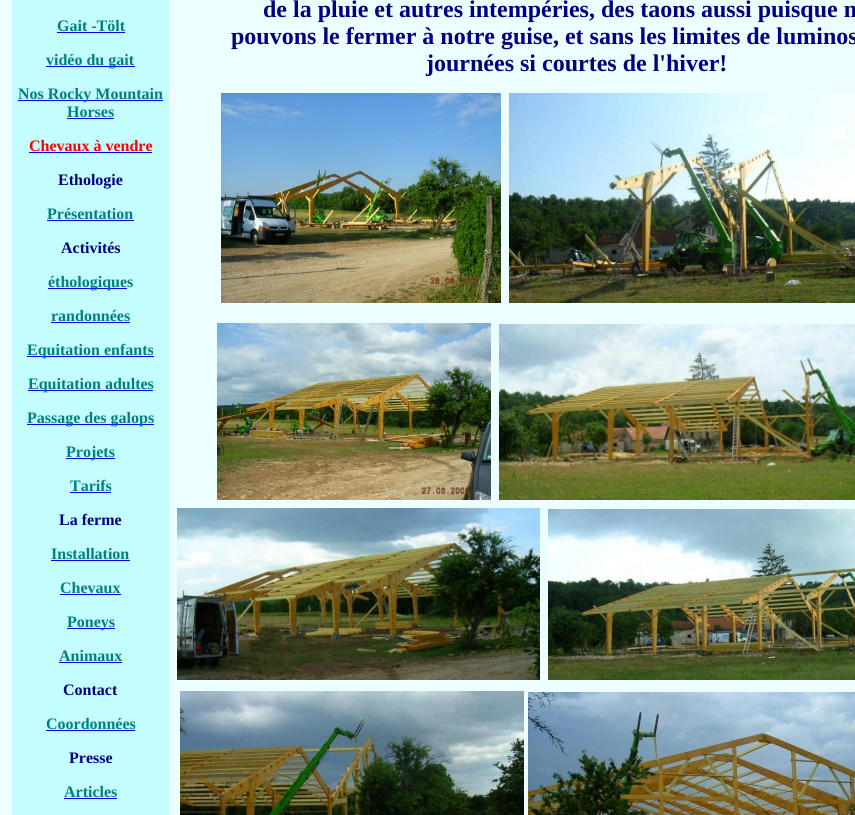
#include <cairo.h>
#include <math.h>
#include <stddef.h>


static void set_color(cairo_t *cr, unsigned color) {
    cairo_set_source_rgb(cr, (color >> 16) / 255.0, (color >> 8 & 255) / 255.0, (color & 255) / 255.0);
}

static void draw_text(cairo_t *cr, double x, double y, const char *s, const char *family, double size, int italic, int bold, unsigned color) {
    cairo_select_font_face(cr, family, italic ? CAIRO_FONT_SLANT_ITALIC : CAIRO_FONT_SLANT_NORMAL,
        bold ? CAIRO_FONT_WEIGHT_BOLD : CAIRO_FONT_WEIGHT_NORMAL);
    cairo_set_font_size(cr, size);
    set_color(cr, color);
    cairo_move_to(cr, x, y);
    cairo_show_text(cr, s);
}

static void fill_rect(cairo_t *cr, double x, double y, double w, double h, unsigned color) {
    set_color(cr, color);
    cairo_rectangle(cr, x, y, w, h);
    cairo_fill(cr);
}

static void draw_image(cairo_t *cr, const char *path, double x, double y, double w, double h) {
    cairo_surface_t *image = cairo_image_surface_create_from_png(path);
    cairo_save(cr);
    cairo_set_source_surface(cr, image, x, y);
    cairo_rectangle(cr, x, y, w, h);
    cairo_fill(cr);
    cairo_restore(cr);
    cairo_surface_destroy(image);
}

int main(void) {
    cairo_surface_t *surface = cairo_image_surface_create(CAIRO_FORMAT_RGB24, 855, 815);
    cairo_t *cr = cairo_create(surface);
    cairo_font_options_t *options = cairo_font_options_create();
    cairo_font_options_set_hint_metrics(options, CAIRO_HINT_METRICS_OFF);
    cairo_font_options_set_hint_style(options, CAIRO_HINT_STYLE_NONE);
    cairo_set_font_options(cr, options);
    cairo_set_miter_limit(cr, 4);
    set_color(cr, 0xECFEFF);
    cairo_paint(cr);
    fill_rect(cr, 12, 0, 157, 815, 0xC4FDFD);
    draw_text(cr, 57, 31, "Gait -Tölt", "Liberation Serif", 16, 0, 1, 0x008080);
    fill_rect(cr, 57, 32, 68, 1, 0x0000EE);
    fill_rect(cr, 46, 66, 89, 1, 0x0000EE);
    draw_text(cr, 46, 65, "vidéo du gait", "Liberation Serif", 16, 0, 1, 0x008080);
    fill_rect(cr, 18, 100, 145, 1, 0x0000EE);
    draw_text(cr, 18, 99, "Nos Rocky Mountain", "Liberation Serif", 16, 0, 1, 0x008080);
    draw_text(cr, 67, 117, "Horses", "Liberation Serif", 16, 0, 1, 0x008080);
    fill_rect(cr, 67, 118, 47, 1, 0x0000EE);
    draw_text(cr, 29, 151, "Chevaux à vendre", "Liberation Serif", 16, 0, 1, 0xFF0000);
    fill_rect(cr, 29, 152, 123, 1, 0x0000EE);
    draw_text(cr, 58, 185, "Ethologie", "Liberation Serif", 16, 0, 1, 0x000080);
    draw_text(cr, 47, 219, "Présentation", "Liberation Serif", 16, 0, 1, 0x008080);
    fill_rect(cr, 47, 220, 87, 1, 0x0000EE);
    draw_text(cr, 61, 253, "Activités", "Liberation Serif", 16, 0, 1, 0x000080);
    fill_rect(cr, 48, 288, 79, 1, 0x0000EE);
    draw_text(cr, 48, 287, "éthologiques", "Liberation Serif", 16, 0, 1, 0x008080);
    draw_text(cr, 51, 321, "randonnées", "Liberation Serif", 16, 0, 1, 0x008080);
    fill_rect(cr, 51, 322, 79, 1, 0x0000EE);
    fill_rect(cr, 27, 356, 127, 1, 0x0000EE);
    draw_text(cr, 27, 355, "Equitation enfants", "Liberation Serif", 16, 0, 1, 0x008080);
    fill_rect(cr, 28, 390, 125, 1, 0x0000EE);
    draw_text(cr, 28, 389, "Equitation adultes", "Liberation Serif", 16, 0, 1, 0x008080);
    fill_rect(cr, 27, 424, 127, 1, 0x0000EE);
    draw_text(cr, 27, 423, "Passage des galops", "Liberation Serif", 16, 0, 1, 0x008080);
    fill_rect(cr, 66, 458, 49, 1, 0x0000EE);
    draw_text(cr, 66, 457, "Projets", "Liberation Serif", 16, 0, 1, 0x008080);
    draw_text(cr, 70, 491, "Tarifs", "Liberation Serif", 16, 0, 1, 0x008080);
    fill_rect(cr, 70, 492, 41, 1, 0x0000EE);
    draw_text(cr, 59, 525, "La ferme", "Liberation Serif", 16, 0, 1, 0x000080);
    draw_text(cr, 51, 559, "Installation", "Liberation Serif", 16, 0, 1, 0x008080);
    fill_rect(cr, 51, 560, 79, 1, 0x0000EE);
    draw_text(cr, 60, 593, "Chevaux", "Liberation Serif", 16, 0, 1, 0x008080);
    fill_rect(cr, 60, 594, 61, 1, 0x0000EE);
    fill_rect(cr, 67, 628, 48, 1, 0x0000EE);
    draw_text(cr, 67, 627, "Poneys", "Liberation Serif", 16, 0, 1, 0x008080);
    draw_text(cr, 59, 661, "Animaux", "Liberation Serif", 16, 0, 1, 0x008080);
    fill_rect(cr, 59, 662, 63, 1, 0x0000EE);
    draw_text(cr, 63, 695, "Contact", "Liberation Serif", 16, 0, 1, 0x000080);
    draw_text(cr, 46, 729, "Coordonnées", "Liberation Serif", 16, 0, 1, 0x008080);
    fill_rect(cr, 46, 730, 89, 1, 0x0000EE);
    draw_text(cr, 69, 763, "Presse", "Liberation Serif", 16, 0, 1, 0x000080);
    draw_text(cr, 64, 797, "Articles", "Liberation Serif", 16, 0, 1, 0x008080);
    fill_rect(cr, 64, 798, 53, 1, 0x0000EE);
    draw_text(cr, 263, 17, "de la pluie et autres intempéries, des taons aussi puisque n", "Liberation Serif", 24, 0, 1, 0x000080);
    draw_text(cr, 231, 44, "pouvons le fermer à notre guise, et sans les limites de luminos", "Liberation Serif", 24, 0, 1, 0x000080);
    draw_text(cr, 426, 71, "journées si courtes de l'hiver!", "Liberation Serif", 24, 0, 1, 0x000080);
    draw_image(cr, "assets/img1.png", 221, 93, 280, 210);
    draw_image(cr, "assets/img2.png", 509, 93, 346, 210);
    draw_image(cr, "assets/img3.png", 217, 323, 274, 177);
    draw_image(cr, "assets/img4.png", 499, 324, 356, 176);
    draw_image(cr, "assets/img5.png", 177, 508, 363, 172);
    draw_image(cr, "assets/img6.png", 548, 509, 307, 171);
    draw_image(cr, "assets/img7.png", 180, 691, 344, 124);
    draw_image(cr, "assets/img8.png", 528, 692, 327, 123);
    cairo_surface_write_to_png(surface, "output.png");
    cairo_font_options_destroy(options);
    cairo_destroy(cr);
    cairo_surface_destroy(surface);
    return 0;
}
